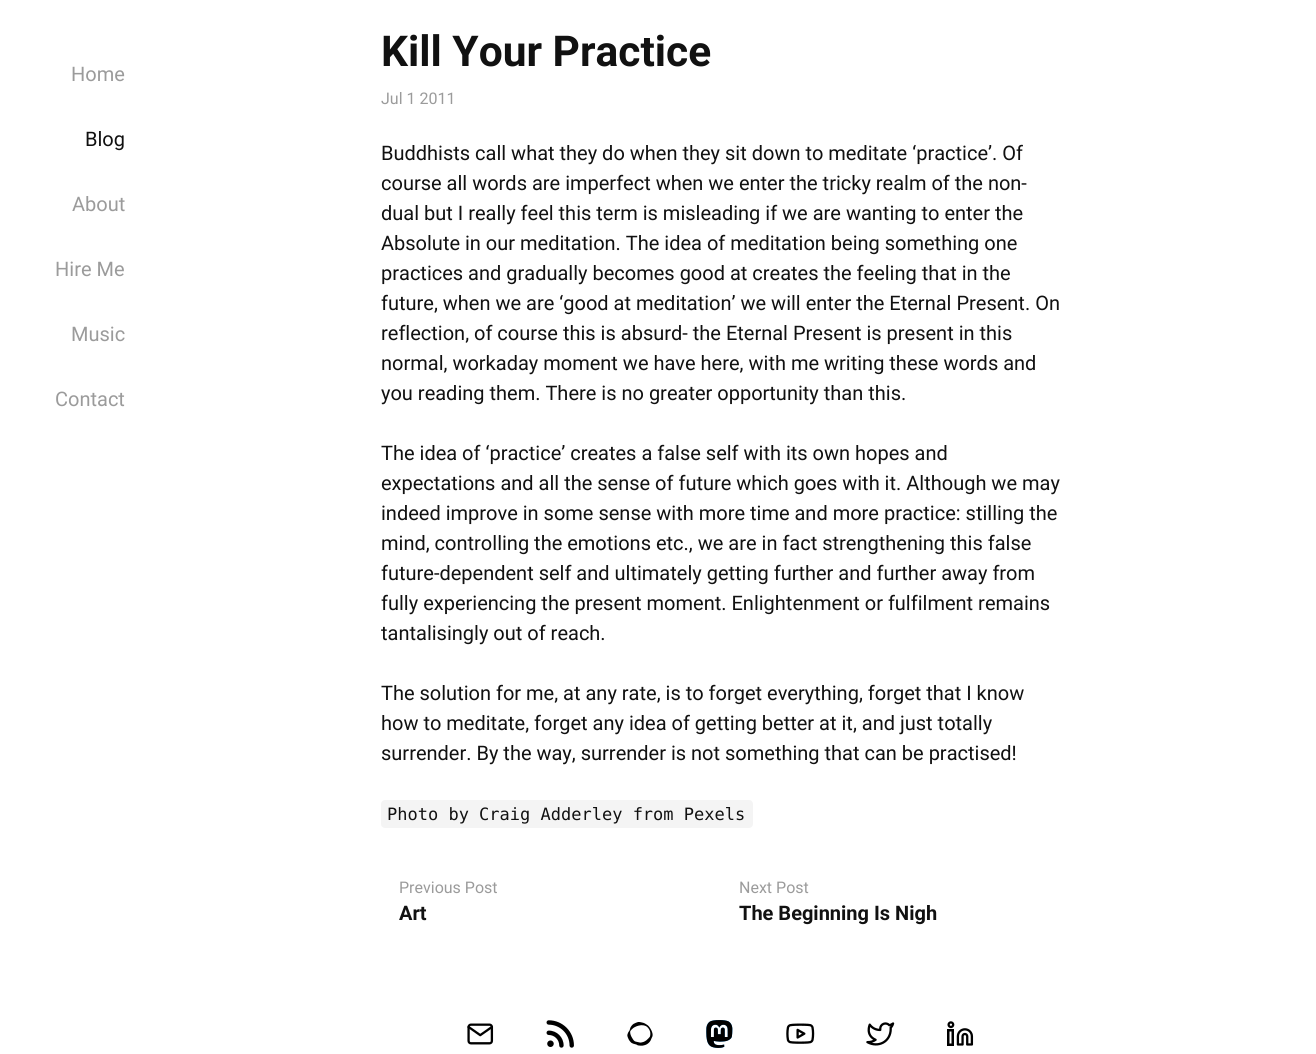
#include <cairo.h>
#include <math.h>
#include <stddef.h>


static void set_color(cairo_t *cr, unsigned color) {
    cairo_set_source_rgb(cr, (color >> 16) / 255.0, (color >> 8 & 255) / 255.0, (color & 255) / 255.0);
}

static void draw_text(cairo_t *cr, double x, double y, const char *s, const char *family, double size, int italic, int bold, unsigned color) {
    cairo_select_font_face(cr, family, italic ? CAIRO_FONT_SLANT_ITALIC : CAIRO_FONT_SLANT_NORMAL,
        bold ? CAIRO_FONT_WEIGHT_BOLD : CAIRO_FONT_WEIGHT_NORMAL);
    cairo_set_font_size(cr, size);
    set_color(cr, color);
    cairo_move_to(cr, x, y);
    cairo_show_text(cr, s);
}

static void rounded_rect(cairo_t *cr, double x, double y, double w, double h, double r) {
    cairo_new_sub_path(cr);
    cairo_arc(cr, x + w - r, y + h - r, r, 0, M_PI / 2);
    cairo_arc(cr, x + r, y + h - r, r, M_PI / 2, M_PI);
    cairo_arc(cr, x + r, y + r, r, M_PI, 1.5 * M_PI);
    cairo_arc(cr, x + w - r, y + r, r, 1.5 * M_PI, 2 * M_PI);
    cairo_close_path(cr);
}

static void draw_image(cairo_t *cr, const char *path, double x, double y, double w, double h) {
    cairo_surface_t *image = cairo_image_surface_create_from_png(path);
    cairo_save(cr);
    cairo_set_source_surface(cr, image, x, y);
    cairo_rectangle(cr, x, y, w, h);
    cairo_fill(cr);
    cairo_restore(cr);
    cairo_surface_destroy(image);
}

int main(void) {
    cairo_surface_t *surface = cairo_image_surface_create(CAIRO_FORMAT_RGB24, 1316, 1054);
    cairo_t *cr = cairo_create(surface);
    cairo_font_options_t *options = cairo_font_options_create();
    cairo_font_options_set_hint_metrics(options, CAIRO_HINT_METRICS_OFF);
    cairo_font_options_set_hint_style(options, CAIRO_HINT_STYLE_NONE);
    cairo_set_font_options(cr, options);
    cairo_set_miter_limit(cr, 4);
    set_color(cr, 0xFFFFFF);
    cairo_paint(cr);
    draw_text(cr, 71, 81, "Home", "Roboto", 20, 0, 0, 0x9B9B9B);
    draw_text(cr, 85, 146, "Blog", "Roboto", 20, 0, 0, 0x111111);
    draw_text(cr, 72, 211, "About", "Roboto", 20, 0, 0, 0x9B9B9B);
    draw_text(cr, 55, 276, "Hire Me", "Roboto", 20, 0, 0, 0x9B9B9B);
    draw_text(cr, 71, 341, "Music", "Roboto", 20, 0, 0, 0x9B9B9B);
    draw_text(cr, 55, 406, "Contact", "Roboto", 20, 0, 0, 0x9B9B9B);
    draw_text(cr, 381, 66, "Kill Your Practice", "Roboto", 42.5, 0, 1, 0x111111);
    draw_text(cr, 381, 104, "Jul 1 2011", "Roboto", 16, 0, 0, 0x9B9B9B);
    draw_text(cr, 381, 160, "Buddhists call what they do when they sit down to meditate ‘practice’. Of", "Roboto", 20, 0, 0, 0x111111);
    draw_text(cr, 381, 190, "course all words are imperfect when we enter the tricky realm of the non-", "Roboto", 20, 0, 0, 0x111111);
    draw_text(cr, 381, 220, "dual but I really feel this term is misleading if we are wanting to enter the", "Roboto", 20, 0, 0, 0x111111);
    draw_text(cr, 381, 250, "Absolute in our meditation. The idea of meditation being something one", "Roboto", 20, 0, 0, 0x111111);
    draw_text(cr, 381, 280, "practices and gradually becomes good at creates the feeling that in the", "Roboto", 20, 0, 0, 0x111111);
    draw_text(cr, 381, 310, "future, when we are ‘good at meditation’ we will enter the Eternal Present. On", "Roboto", 20, 0, 0, 0x111111);
    draw_text(cr, 381, 340, "reflection, of course this is absurd- the Eternal Present is present in this", "Roboto", 20, 0, 0, 0x111111);
    draw_text(cr, 381, 370, "normal, workaday moment we have here, with me writing these words and", "Roboto", 20, 0, 0, 0x111111);
    draw_text(cr, 381, 400, "you reading them. There is no greater opportunity than this.", "Roboto", 20, 0, 0, 0x111111);
    draw_text(cr, 381, 460, "The idea of ‘practice’ creates a false self with its own hopes and", "Roboto", 20, 0, 0, 0x111111);
    draw_text(cr, 381, 490, "expectations and all the sense of future which goes with it. Although we may", "Roboto", 20, 0, 0, 0x111111);
    draw_text(cr, 381, 520, "indeed improve in some sense with more time and more practice: stilling the", "Roboto", 20, 0, 0, 0x111111);
    draw_text(cr, 381, 550, "mind, controlling the emotions etc., we are in fact strengthening this false", "Roboto", 20, 0, 0, 0x111111);
    draw_text(cr, 381, 580, "future-dependent self and ultimately getting further and further away from", "Roboto", 20, 0, 0, 0x111111);
    draw_text(cr, 381, 610, "fully experiencing the present moment. Enlightenment or fulfilment remains", "Roboto", 20, 0, 0, 0x111111);
    draw_text(cr, 381, 640, "tantalisingly out of reach.", "Roboto", 20, 0, 0, 0x111111);
    draw_text(cr, 381, 700, "The solution for me, at any rate, is to forget everything, forget that I know", "Roboto", 20, 0, 0, 0x111111);
    draw_text(cr, 381, 730, "how to meditate, forget any idea of getting better at it, and just totally", "Roboto", 20, 0, 0, 0x111111);
    draw_text(cr, 381, 760, "surrender. By the way, surrender is not something that can be practised!", "Roboto", 20, 0, 0, 0x111111);
    set_color(cr, 0xF4F4F4);
    rounded_rect(cr, 381, 800, 372, 28, 4);
    cairo_fill(cr);
    draw_text(cr, 387, 820, "Photo by Craig Adderley from Pexels", "DejaVu Sans Mono", 17, 0, 0, 0x111111);
    draw_text(cr, 399, 893, "Previous Post", "Roboto", 16, 0, 0, 0x9B9B9B);
    draw_text(cr, 399, 920, "Art", "Roboto", 20, 0, 1, 0x111111);
    draw_text(cr, 739, 893, "Next Post", "Roboto", 16, 0, 0, 0x9B9B9B);
    draw_text(cr, 739, 920, "The Beginning Is Nigh", "Roboto", 20, 0, 1, 0x111111);
    draw_image(cr, "assets/img1.png", 467, 1023, 27, 22);
    draw_image(cr, "assets/img2.png", 546, 1020, 28, 28);
    draw_image(cr, "assets/img3.png", 627, 1022, 26, 24);
    draw_image(cr, "assets/img4.png", 706, 1020, 27, 28);
    draw_image(cr, "assets/img5.png", 786, 1023, 29, 21);
    draw_image(cr, "assets/img6.png", 866, 1022, 29, 24);
    draw_image(cr, "assets/img7.png", 947, 1021, 27, 25);
    cairo_surface_write_to_png(surface, "output.png");
    cairo_font_options_destroy(options);
    cairo_destroy(cr);
    cairo_surface_destroy(surface);
    return 0;
}
